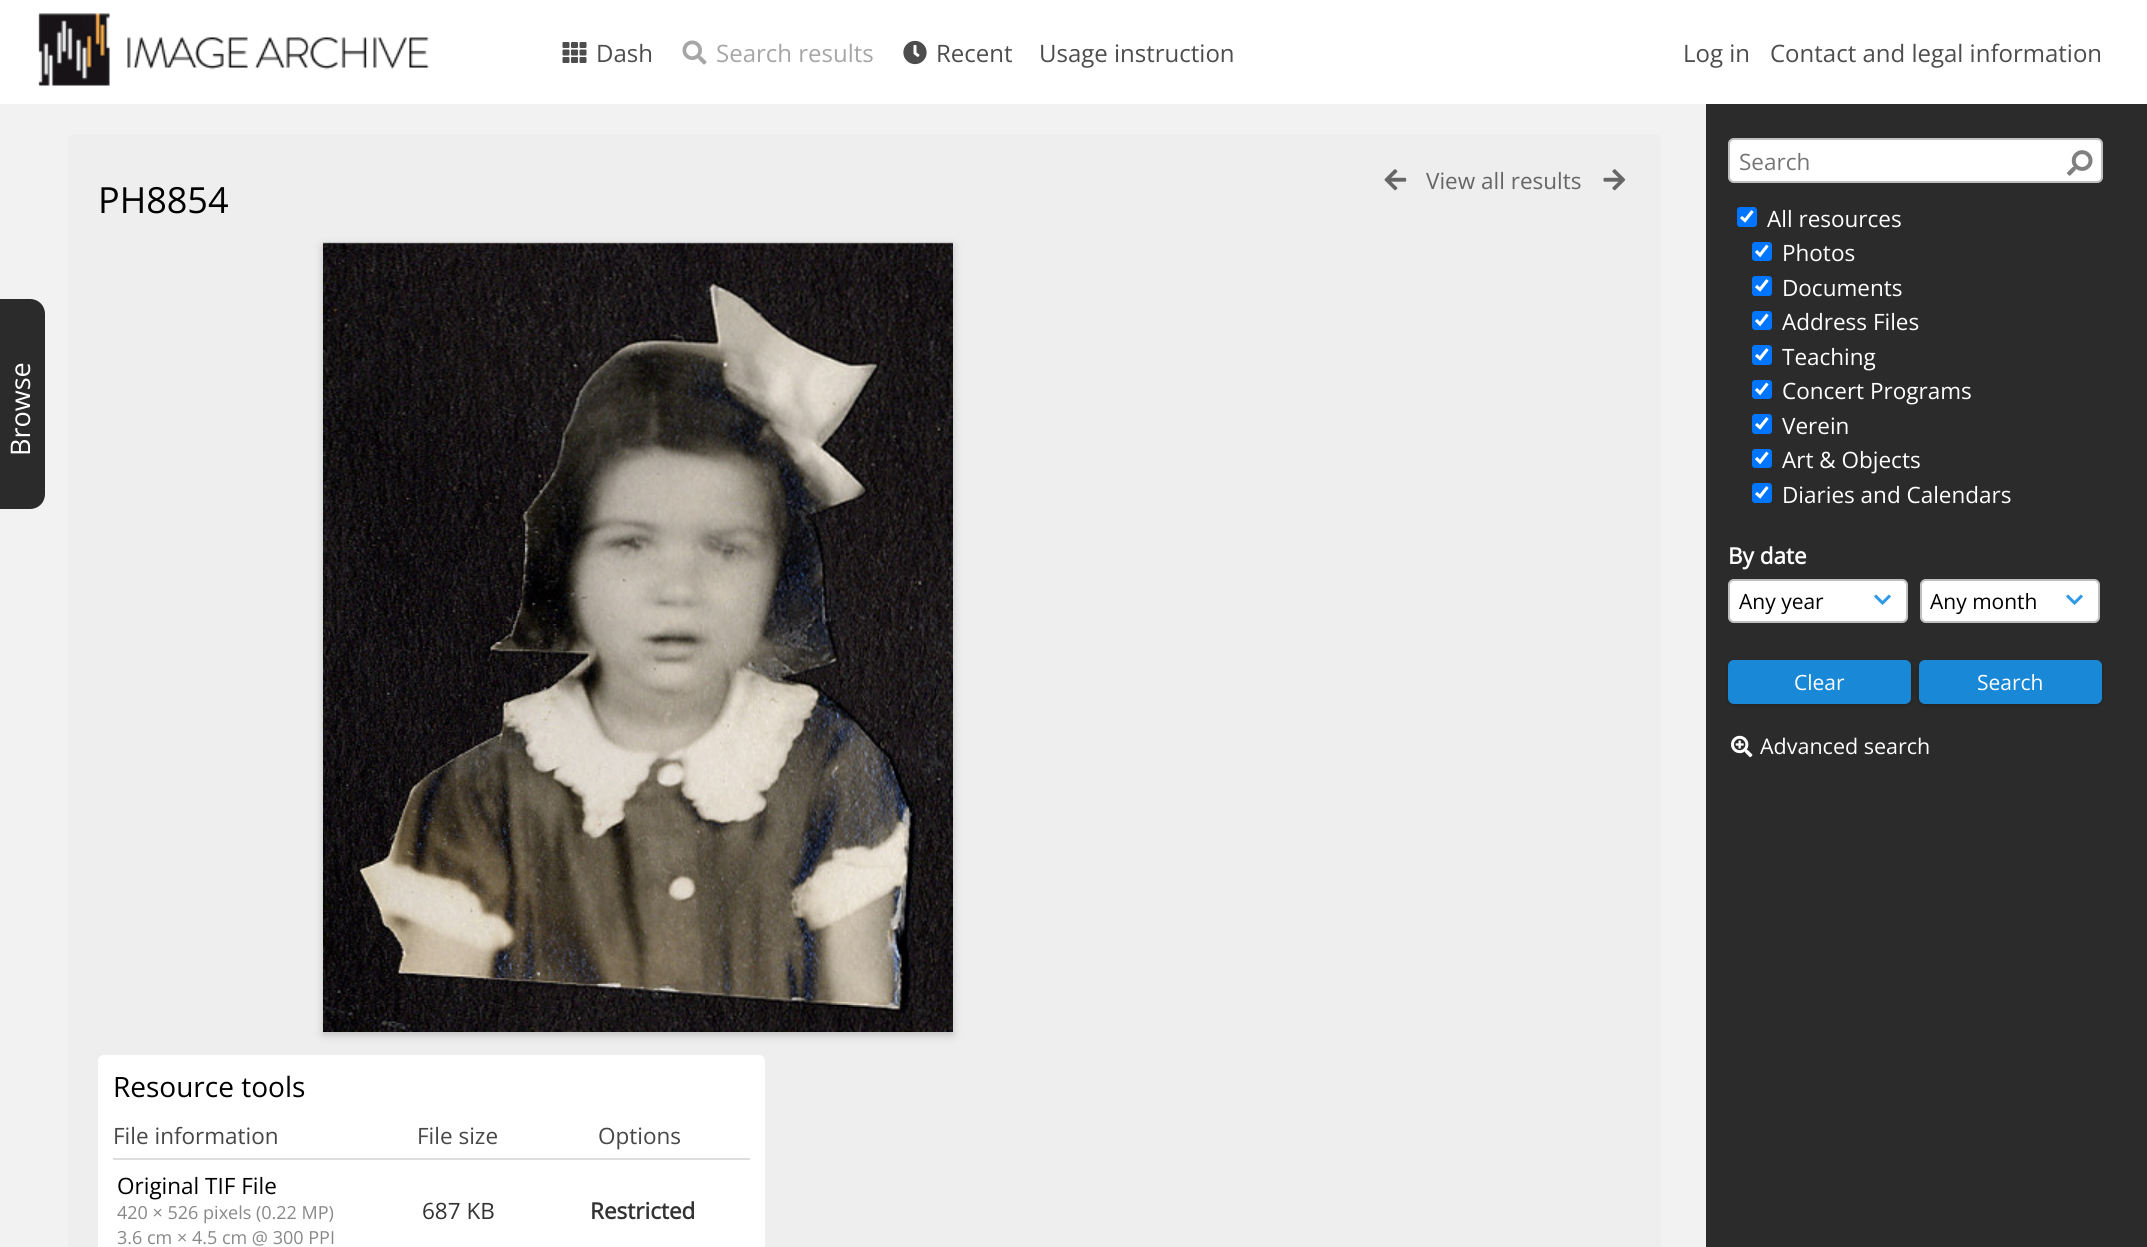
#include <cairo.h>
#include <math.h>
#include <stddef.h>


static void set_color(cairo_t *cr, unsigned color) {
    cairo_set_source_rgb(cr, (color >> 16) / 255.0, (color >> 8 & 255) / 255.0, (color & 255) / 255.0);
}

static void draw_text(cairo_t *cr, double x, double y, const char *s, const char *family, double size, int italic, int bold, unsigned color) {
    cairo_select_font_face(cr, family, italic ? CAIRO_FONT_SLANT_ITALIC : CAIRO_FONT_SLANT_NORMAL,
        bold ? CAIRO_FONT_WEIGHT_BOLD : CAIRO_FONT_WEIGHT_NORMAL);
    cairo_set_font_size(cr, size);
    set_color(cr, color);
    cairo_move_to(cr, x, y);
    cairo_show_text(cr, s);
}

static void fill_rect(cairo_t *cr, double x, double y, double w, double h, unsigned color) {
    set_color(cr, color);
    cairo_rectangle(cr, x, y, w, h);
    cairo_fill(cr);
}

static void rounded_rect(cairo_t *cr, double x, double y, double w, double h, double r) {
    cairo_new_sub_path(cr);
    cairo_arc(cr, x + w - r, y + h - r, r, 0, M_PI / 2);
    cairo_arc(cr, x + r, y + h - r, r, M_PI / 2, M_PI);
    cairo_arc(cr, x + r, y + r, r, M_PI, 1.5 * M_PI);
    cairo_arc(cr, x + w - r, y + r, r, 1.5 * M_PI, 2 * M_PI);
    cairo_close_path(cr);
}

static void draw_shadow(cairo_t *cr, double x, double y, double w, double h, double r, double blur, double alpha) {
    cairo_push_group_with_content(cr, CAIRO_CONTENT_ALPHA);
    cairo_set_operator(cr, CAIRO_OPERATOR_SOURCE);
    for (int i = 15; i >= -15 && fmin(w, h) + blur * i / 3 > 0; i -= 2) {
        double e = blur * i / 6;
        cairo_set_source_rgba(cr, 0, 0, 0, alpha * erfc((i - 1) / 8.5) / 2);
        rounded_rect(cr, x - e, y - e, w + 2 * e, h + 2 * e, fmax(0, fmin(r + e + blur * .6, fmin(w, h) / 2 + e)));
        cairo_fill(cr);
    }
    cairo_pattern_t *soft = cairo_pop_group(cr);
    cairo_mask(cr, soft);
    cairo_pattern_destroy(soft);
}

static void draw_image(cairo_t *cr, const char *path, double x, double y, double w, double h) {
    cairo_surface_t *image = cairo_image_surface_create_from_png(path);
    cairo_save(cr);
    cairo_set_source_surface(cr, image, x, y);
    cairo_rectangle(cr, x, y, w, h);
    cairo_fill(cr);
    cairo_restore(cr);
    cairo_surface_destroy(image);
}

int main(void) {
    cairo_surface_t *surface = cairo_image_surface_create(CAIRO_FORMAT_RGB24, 2147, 1247);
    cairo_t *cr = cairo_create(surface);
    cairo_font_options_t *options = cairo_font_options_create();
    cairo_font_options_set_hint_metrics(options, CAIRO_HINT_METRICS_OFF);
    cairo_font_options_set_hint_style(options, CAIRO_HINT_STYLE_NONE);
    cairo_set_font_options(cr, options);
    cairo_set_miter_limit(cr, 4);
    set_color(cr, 0xF2F2F2);
    cairo_paint(cr);
    fill_rect(cr, 0, 0, 2147, 104, 0xFFFFFF);
    draw_image(cr, "assets/img1.png", 38, 13, 392, 73);
    draw_image(cr, "assets/img2.png", 562, 42, 25, 21);
    draw_text(cr, 596, 62, "Dash", "Open Sans", 24, 0, 0, 0x4D4D4D);
    draw_image(cr, "assets/img3.png", 682, 40, 25, 25);
    draw_text(cr, 716, 62, "Search results", "Open Sans", 24, 0, 0, 0xA6A6A6);
    draw_image(cr, "assets/img4.png", 903, 40, 24, 25);
    draw_text(cr, 936, 62, "Recent", "Open Sans", 24, 0, 0, 0x4D4D4D);
    draw_text(cr, 1039, 62, "Usage instruction", "Open Sans", 24, 0, 0, 0x4D4D4D);
    draw_text(cr, 1683, 62, "Log in", "Open Sans", 24, 0, 0, 0x4D4D4D);
    draw_text(cr, 1770, 62, "Contact and legal information", "Open Sans", 24, 0, 0, 0x4D4D4D);
    set_color(cr, 0x2B2B2B);
    cairo_new_path(cr);
    cairo_move_to(cr, 0, 299);
    cairo_line_to(cr, 30, 299);
    cairo_curve_to(cr, 38.5, 299, 45, 305.5, 45, 314);
    cairo_line_to(cr, 45, 494);
    cairo_curve_to(cr, 45, 502.5, 38.5, 509, 30, 509);
    cairo_line_to(cr, 0, 509);
    cairo_close_path(cr);
    cairo_fill(cr);
    cairo_save(cr);
    cairo_translate(cr, 30, 456);
    cairo_rotate(cr, -90 * M_PI / 180);
    draw_text(cr, 0, 0, "Browse", "Open Sans", 27, 0, 0, 0xFFFFFF);
    cairo_restore(cr);
    set_color(cr, 0xEEEEEE);
    cairo_new_path(cr);
    cairo_move_to(cr, 74, 134);
    cairo_line_to(cr, 1655, 134);
    cairo_curve_to(cr, 1658.5, 134, 1661, 136.5, 1661, 140);
    cairo_line_to(cr, 1661, 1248);
    cairo_line_to(cr, 68, 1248);
    cairo_line_to(cr, 68, 140);
    cairo_curve_to(cr, 68, 136.5, 70.5, 134, 74, 134);
    cairo_close_path(cr);
    cairo_fill(cr);
    draw_image(cr, "assets/img5.png", 1384, 169, 23, 22);
    draw_text(cr, 1426, 189, "View all results", "Open Sans", 22.5, 0, 0, 0x666666);
    draw_image(cr, "assets/img6.png", 1603, 169, 23, 22);
    draw_text(cr, 98, 213, "PH8854", "Open Sans", 36, 0, 0, 0x000000);
    set_color(cr, 0x000000);
    draw_shadow(cr, 323, 246, 630, 789, 0, 4.5, 0.2);
    draw_image(cr, "assets/img7.png", 323, 242, 630, 790);
    set_color(cr, 0xFFFFFF);
    cairo_new_path(cr);
    cairo_move_to(cr, 104, 1055);
    cairo_line_to(cr, 759, 1055);
    cairo_curve_to(cr, 762.5, 1055, 765, 1057.5, 765, 1061);
    cairo_line_to(cr, 765, 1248);
    cairo_line_to(cr, 98, 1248);
    cairo_line_to(cr, 98, 1061);
    cairo_curve_to(cr, 98, 1057.5, 100.5, 1055, 104, 1055);
    cairo_close_path(cr);
    cairo_fill(cr);
    draw_text(cr, 113, 1097, "Resource tools", "Open Sans", 28, 0, 0, 0x000000);
    draw_text(cr, 113, 1144, "File information", "Open Sans", 22.5, 0, 0, 0x474747);
    draw_text(cr, 417, 1144, "File size", "Open Sans", 22.5, 0, 0, 0x474747);
    draw_text(cr, 598, 1144, "Options", "Open Sans", 22.5, 0, 0, 0x474747);
    fill_rect(cr, 113, 1158, 637, 2, 0xDDDDDD);
    draw_text(cr, 117, 1194, "Original TIF File", "Open Sans", 22.5, 0, 0, 0x000000);
    draw_text(cr, 117, 1219, "420 × 526 pixels (0.22 MP)", "Open Sans", 18, 0, 0, 0x888888);
    draw_text(cr, 117, 1244, "3.6 cm × 4.5 cm @ 300 PPI", "Open Sans", 18, 0, 0, 0x888888);
    draw_text(cr, 422, 1219, "687 KB", "Open Sans", 22.5, 0, 0, 0x333333);
    draw_text(cr, 590, 1219, "Restricted", "Open Sans", 22.5, 0, 1, 0x333333);
    fill_rect(cr, 1706, 104, 441, 1143, 0x2B2B2B);
    set_color(cr, 0xFFFFFF);
    rounded_rect(cr, 1728, 138, 375, 45, 6);
    cairo_fill(cr);
    rounded_rect(cr, 1729, 139, 373, 43, 5);
    cairo_set_source_rgba(cr, 0, 0, 0, 0.25);
    cairo_stroke(cr);
    draw_text(cr, 1739, 170, "Search", "Open Sans", 22.5, 0, 0, 0x757575);
    draw_image(cr, "assets/img8.png", 2067, 150, 26, 26);
    set_color(cr, 0x0075FF);
    rounded_rect(cr, 1737, 207, 20, 20, 3);
    cairo_fill(cr);
    cairo_new_path(cr);
    cairo_move_to(cr, 1741, 217);
    cairo_line_to(cr, 1745, 220.5);
    cairo_line_to(cr, 1752.5, 211);
    set_color(cr, 0xFFFFFF);
    cairo_set_line_width(cr, 3.1);
    cairo_stroke(cr);
    draw_text(cr, 1767, 227, "All resources", "Open Sans", 22.5, 0, 0, 0xFFFFFF);
    set_color(cr, 0x0075FF);
    rounded_rect(cr, 1752, 242, 20, 19, 3);
    cairo_fill(cr);
    cairo_new_path(cr);
    cairo_move_to(cr, 1756, 251);
    cairo_line_to(cr, 1760, 255);
    cairo_line_to(cr, 1767.5, 245.5);
    set_color(cr, 0xFFFFFF);
    cairo_stroke(cr);
    draw_text(cr, 1782, 261, "Photos", "Open Sans", 22.5, 0, 0, 0xFFFFFF);
    set_color(cr, 0x0075FF);
    rounded_rect(cr, 1752, 276, 20, 20, 3);
    cairo_fill(cr);
    cairo_new_path(cr);
    cairo_move_to(cr, 1756, 286);
    cairo_line_to(cr, 1760, 289.5);
    cairo_line_to(cr, 1767.5, 280);
    set_color(cr, 0xFFFFFF);
    cairo_stroke(cr);
    draw_text(cr, 1782, 296, "Documents", "Open Sans", 22.5, 0, 0, 0xFFFFFF);
    set_color(cr, 0x0075FF);
    rounded_rect(cr, 1752, 311, 20, 19, 3);
    cairo_fill(cr);
    cairo_new_path(cr);
    cairo_move_to(cr, 1756, 320);
    cairo_line_to(cr, 1760, 324);
    cairo_line_to(cr, 1767.5, 314.5);
    set_color(cr, 0xFFFFFF);
    cairo_stroke(cr);
    draw_text(cr, 1782, 330, "Address Files", "Open Sans", 22.5, 0, 0, 0xFFFFFF);
    set_color(cr, 0x0075FF);
    rounded_rect(cr, 1752, 345, 20, 20, 3);
    cairo_fill(cr);
    cairo_new_path(cr);
    cairo_move_to(cr, 1756, 355);
    cairo_line_to(cr, 1760, 358.5);
    cairo_line_to(cr, 1767.5, 349);
    set_color(cr, 0xFFFFFF);
    cairo_stroke(cr);
    draw_text(cr, 1782, 365, "Teaching", "Open Sans", 22.5, 0, 0, 0xFFFFFF);
    set_color(cr, 0x0075FF);
    rounded_rect(cr, 1752, 380, 20, 19, 3);
    cairo_fill(cr);
    cairo_new_path(cr);
    cairo_move_to(cr, 1756, 389);
    cairo_line_to(cr, 1760, 393);
    cairo_line_to(cr, 1767.5, 383.5);
    set_color(cr, 0xFFFFFF);
    cairo_stroke(cr);
    draw_text(cr, 1782, 399, "Concert Programs", "Open Sans", 22.5, 0, 0, 0xFFFFFF);
    set_color(cr, 0x0075FF);
    rounded_rect(cr, 1752, 414, 20, 20, 3);
    cairo_fill(cr);
    cairo_new_path(cr);
    cairo_move_to(cr, 1756, 424);
    cairo_line_to(cr, 1760, 427.5);
    cairo_line_to(cr, 1767.5, 418);
    set_color(cr, 0xFFFFFF);
    cairo_stroke(cr);
    draw_text(cr, 1782, 434, "Verein", "Open Sans", 22.5, 0, 0, 0xFFFFFF);
    set_color(cr, 0x0075FF);
    rounded_rect(cr, 1752, 449, 20, 19, 3);
    cairo_fill(cr);
    cairo_new_path(cr);
    cairo_move_to(cr, 1756, 458);
    cairo_line_to(cr, 1760, 462);
    cairo_line_to(cr, 1767.5, 452.5);
    set_color(cr, 0xFFFFFF);
    cairo_stroke(cr);
    draw_text(cr, 1782, 468, "Art & Objects", "Open Sans", 22.5, 0, 0, 0xFFFFFF);
    set_color(cr, 0x0075FF);
    rounded_rect(cr, 1752, 483, 20, 20, 3);
    cairo_fill(cr);
    cairo_new_path(cr);
    cairo_move_to(cr, 1756, 493);
    cairo_line_to(cr, 1760, 496.5);
    cairo_line_to(cr, 1767.5, 487);
    set_color(cr, 0xFFFFFF);
    cairo_stroke(cr);
    draw_text(cr, 1782, 503, "Diaries and Calendars", "Open Sans", 22.5, 0, 0, 0xFFFFFF);
    draw_text(cr, 1728, 564, "By date", "Open Sans", 22.5, 0, 1, 0xFFFFFF);
    rounded_rect(cr, 1728, 579, 180, 44, 6);
    cairo_fill(cr);
    cairo_new_path(cr);
    cairo_move_to(cr, 1890, 595.5);
    cairo_line_to(cr, 1882.5, 603);
    cairo_line_to(cr, 1875, 595.5);
    set_color(cr, 0x2E99E6);
    cairo_set_line_width(cr, 3);
    cairo_stroke(cr);
    rounded_rect(cr, 1729, 580, 178, 42, 5);
    cairo_set_source_rgba(cr, 0, 0, 0, 0.25);
    cairo_set_line_width(cr, 2);
    cairo_stroke(cr);
    draw_text(cr, 1739, 609, "Any year", "Open Sans", 21, 0, 0, 0x000000);
    set_color(cr, 0xFFFFFF);
    rounded_rect(cr, 1920, 579, 180, 44, 6);
    cairo_fill(cr);
    cairo_new_path(cr);
    cairo_move_to(cr, 2082, 595.5);
    cairo_line_to(cr, 2074.5, 603);
    cairo_line_to(cr, 2067, 595.5);
    set_color(cr, 0x2E99E6);
    cairo_set_line_width(cr, 3);
    cairo_stroke(cr);
    rounded_rect(cr, 1921, 580, 178, 42, 5);
    cairo_set_source_rgba(cr, 0, 0, 0, 0.25);
    cairo_set_line_width(cr, 2);
    cairo_stroke(cr);
    draw_text(cr, 1930, 609, "Any month", "Open Sans", 21, 0, 0, 0x000000);
    set_color(cr, 0x000000);
    draw_shadow(cr, 1728, 662, 183, 43, 6, 2, 0.25);
    set_color(cr, 0x1988D7);
    rounded_rect(cr, 1728, 660, 183, 44, 6);
    cairo_fill(cr);
    draw_text(cr, 1794, 690, "Clear", "Open Sans", 21, 0, 0, 0xFFFFFF);
    set_color(cr, 0x000000);
    draw_shadow(cr, 1919, 662, 183, 43, 6, 2, 0.25);
    set_color(cr, 0x1988D7);
    rounded_rect(cr, 1919, 660, 183, 44, 6);
    cairo_fill(cr);
    draw_text(cr, 1977, 690, "Search", "Open Sans", 21, 0, 0, 0xFFFFFF);
    draw_image(cr, "assets/img9.png", 1731, 735, 22, 23);
    draw_text(cr, 1760, 754, "Advanced search", "Open Sans", 21.5, 0, 0, 0xFFFFFF);
    cairo_surface_write_to_png(surface, "output.png");
    cairo_font_options_destroy(options);
    cairo_destroy(cr);
    cairo_surface_destroy(surface);
    return 0;
}
